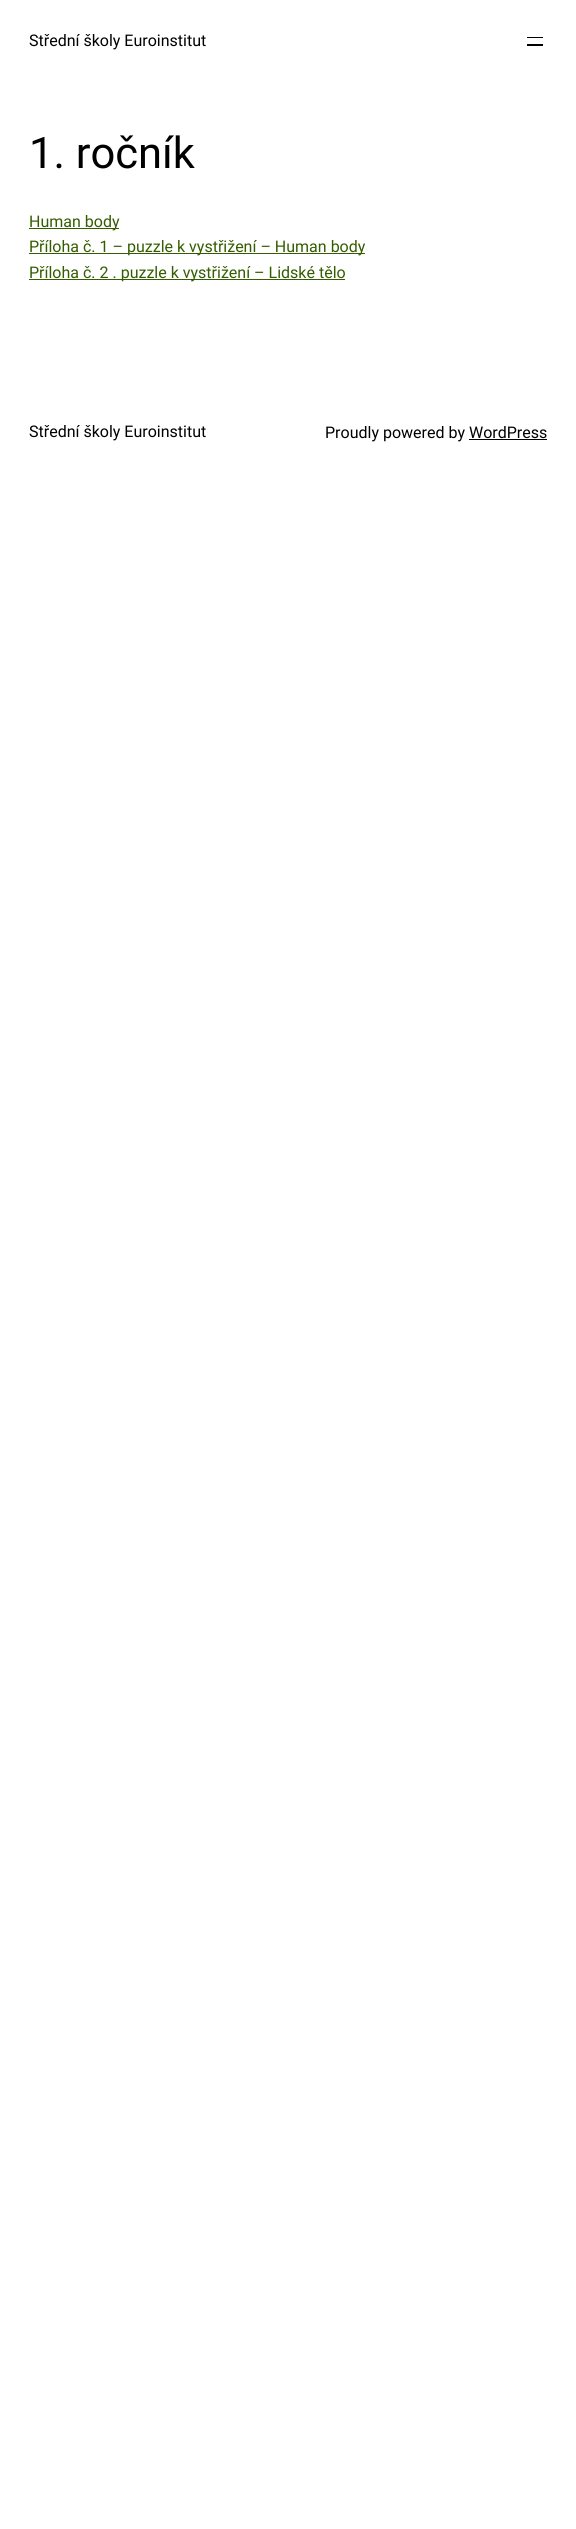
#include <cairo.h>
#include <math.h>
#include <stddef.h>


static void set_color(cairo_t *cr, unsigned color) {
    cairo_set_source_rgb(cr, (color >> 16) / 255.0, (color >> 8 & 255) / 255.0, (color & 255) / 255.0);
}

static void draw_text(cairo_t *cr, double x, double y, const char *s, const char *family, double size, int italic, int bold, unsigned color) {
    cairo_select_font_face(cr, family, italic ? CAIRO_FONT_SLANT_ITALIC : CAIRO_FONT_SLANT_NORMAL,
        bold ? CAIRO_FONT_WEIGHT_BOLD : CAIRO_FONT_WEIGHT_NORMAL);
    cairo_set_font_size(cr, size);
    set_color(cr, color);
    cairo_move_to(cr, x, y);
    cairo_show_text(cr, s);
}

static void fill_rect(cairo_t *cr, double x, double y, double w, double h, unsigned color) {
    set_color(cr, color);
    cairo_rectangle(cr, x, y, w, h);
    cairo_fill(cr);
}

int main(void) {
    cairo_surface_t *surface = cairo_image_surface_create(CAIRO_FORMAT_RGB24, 576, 2529);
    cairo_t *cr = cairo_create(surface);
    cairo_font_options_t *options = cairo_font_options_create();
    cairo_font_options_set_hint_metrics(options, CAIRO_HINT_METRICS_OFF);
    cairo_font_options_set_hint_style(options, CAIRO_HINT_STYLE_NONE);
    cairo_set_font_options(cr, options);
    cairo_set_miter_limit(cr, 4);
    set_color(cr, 0xFFFFFF);
    cairo_paint(cr);
    draw_text(cr, 29, 46, "Střední školy Euroinstitut", "Roboto", 16, 0, 0, 0x000000);
    fill_rect(cr, 527, 37, 16, 1, 0x000000);
    fill_rect(cr, 527, 44, 16, 2, 0x000000);
    draw_text(cr, 29, 168, "1. ročník", "Roboto", 43.5, 0, 0, 0x000000);
    fill_rect(cr, 29, 228, 90, 1, 0x345C00);
    draw_text(cr, 29, 227, "Human body", "Roboto", 16, 0, 0, 0x345C00);
    fill_rect(cr, 29, 253, 336, 1, 0x345C00);
    draw_text(cr, 29, 252, "Příloha č. 1 – puzzle k vystřižení – Human body", "Roboto", 16, 0, 0, 0x345C00);
    fill_rect(cr, 29, 279, 316, 1, 0x345C00);
    draw_text(cr, 29, 278, "Příloha č. 2 . puzzle k vystřižení – Lidské tělo", "Roboto", 16, 0, 0, 0x345C00);
    draw_text(cr, 29, 437, "Střední školy Euroinstitut", "Roboto", 16, 0, 0, 0x000000);
    draw_text(cr, 325, 438, "Proudly powered by WordPress", "Roboto", 16, 0, 0, 0x000000);
    fill_rect(cr, 469, 439, 78, 1, 0x000000);
    cairo_surface_write_to_png(surface, "output.png");
    cairo_font_options_destroy(options);
    cairo_destroy(cr);
    cairo_surface_destroy(surface);
    return 0;
}
